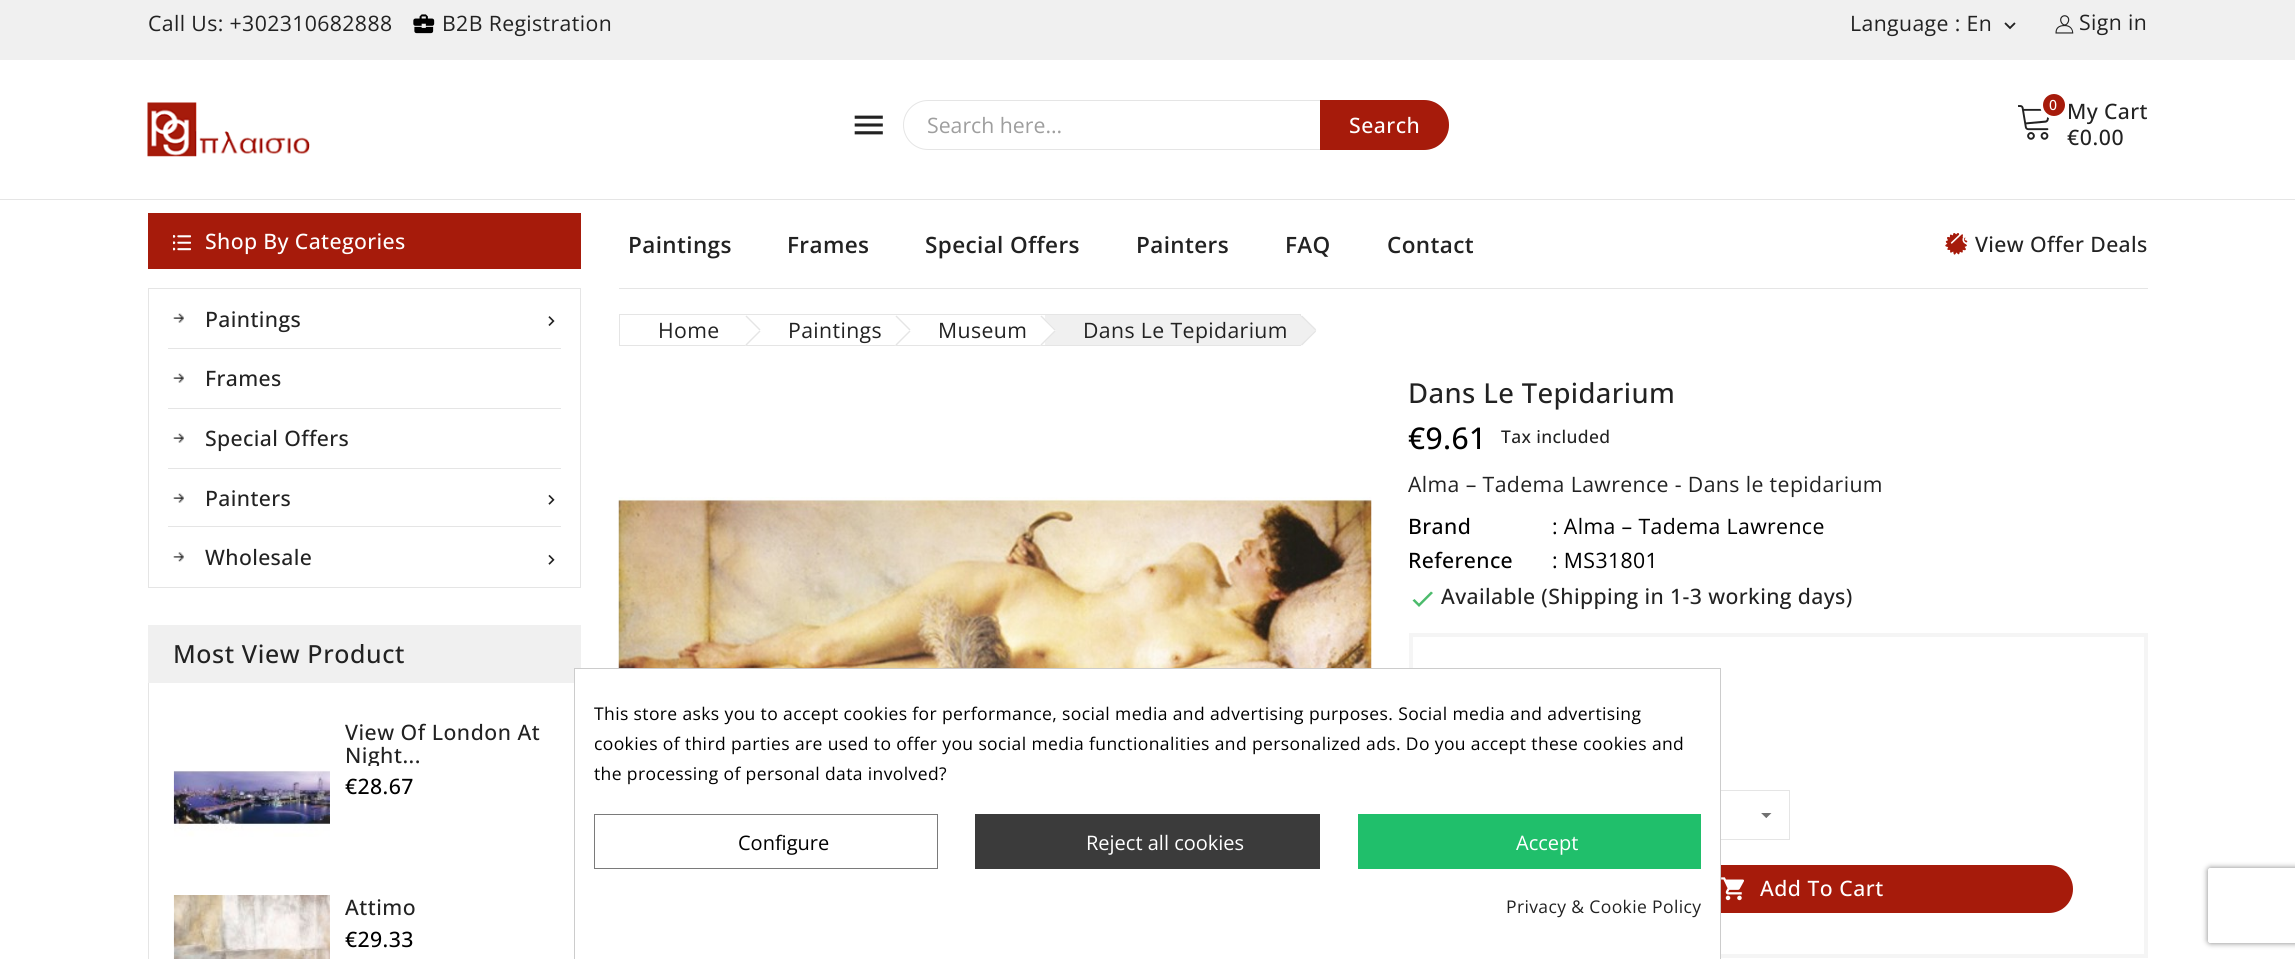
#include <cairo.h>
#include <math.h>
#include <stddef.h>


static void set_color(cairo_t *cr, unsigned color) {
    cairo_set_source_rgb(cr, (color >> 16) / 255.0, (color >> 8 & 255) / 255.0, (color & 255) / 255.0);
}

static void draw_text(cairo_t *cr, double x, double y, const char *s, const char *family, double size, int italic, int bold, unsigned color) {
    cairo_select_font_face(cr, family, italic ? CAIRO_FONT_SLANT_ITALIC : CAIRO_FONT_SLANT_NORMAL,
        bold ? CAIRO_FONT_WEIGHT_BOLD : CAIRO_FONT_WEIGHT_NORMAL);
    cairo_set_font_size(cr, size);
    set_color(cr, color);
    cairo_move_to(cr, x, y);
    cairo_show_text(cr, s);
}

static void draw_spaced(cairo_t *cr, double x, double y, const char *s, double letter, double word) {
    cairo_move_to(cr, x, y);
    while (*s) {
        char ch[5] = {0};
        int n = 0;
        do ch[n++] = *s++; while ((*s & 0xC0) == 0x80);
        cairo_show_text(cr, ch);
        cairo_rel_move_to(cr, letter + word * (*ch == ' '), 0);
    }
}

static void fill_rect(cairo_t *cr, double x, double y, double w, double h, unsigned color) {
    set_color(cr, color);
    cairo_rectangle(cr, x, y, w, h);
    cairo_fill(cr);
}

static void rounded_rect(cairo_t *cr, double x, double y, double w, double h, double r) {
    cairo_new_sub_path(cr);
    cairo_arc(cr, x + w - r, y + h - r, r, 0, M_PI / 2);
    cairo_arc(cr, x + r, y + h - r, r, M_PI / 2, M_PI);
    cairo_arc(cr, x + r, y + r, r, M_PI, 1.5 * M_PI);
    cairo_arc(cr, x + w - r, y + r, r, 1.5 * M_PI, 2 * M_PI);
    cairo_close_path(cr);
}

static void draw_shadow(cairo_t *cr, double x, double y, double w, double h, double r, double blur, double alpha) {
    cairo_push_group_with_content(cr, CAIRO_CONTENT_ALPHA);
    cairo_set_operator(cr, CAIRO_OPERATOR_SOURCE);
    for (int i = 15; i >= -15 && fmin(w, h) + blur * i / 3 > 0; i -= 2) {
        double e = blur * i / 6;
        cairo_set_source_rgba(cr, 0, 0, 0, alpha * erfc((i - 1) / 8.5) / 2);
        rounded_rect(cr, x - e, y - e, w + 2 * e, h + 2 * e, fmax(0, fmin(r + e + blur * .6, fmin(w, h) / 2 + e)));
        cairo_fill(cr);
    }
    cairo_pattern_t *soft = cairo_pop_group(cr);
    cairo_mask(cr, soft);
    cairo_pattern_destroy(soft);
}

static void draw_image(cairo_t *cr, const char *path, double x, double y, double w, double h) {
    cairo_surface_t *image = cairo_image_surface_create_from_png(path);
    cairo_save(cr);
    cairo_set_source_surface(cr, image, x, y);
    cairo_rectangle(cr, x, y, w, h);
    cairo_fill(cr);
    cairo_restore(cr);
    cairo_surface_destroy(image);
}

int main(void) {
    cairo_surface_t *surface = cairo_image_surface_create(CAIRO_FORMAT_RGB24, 2295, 959);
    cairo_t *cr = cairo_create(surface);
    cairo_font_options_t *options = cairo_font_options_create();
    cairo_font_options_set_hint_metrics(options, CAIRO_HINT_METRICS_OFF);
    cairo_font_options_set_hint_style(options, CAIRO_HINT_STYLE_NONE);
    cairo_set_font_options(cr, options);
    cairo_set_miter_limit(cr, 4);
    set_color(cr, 0xFFFFFF);
    cairo_paint(cr);
    fill_rect(cr, 0, 0, 2295, 60, 0xF0F0F0);
    cairo_select_font_face(cr, "Open Sans", CAIRO_FONT_SLANT_NORMAL, CAIRO_FONT_WEIGHT_NORMAL);
    cairo_set_font_size(cr, 21.25);
    set_color(cr, 0x222222);
    draw_spaced(cr, 148, 31, "Call Us: +302310682888", 0.38, 0);
    draw_image(cr, "assets/img1.png", 413, 14, 22, 20);
    draw_spaced(cr, 442, 31, "B2B Registration", 0.38, 0);
    draw_spaced(cr, 1850, 31, "Language : En", 0.38, 0);
    draw_image(cr, "assets/img2.png", 2004, 22, 12, 8);
    draw_image(cr, "assets/img3.png", 2055, 15, 19, 19);
    draw_spaced(cr, 2079, 30, "Sign in", 0.38, 0);
    draw_image(cr, "assets/img4.png", 147, 102, 163, 55);
    draw_image(cr, "assets/img5.png", 854, 115, 29, 20);
    rounded_rect(cr, 903.5, 100.5, 545, 49, 24.5);
    set_color(cr, 0xE5E5E5);
    cairo_set_line_width(cr, 1);
    cairo_stroke(cr);
    draw_text(cr, 927, 133, "Search here...", "Open Sans", 21.25, 0, 0, 0x9E9E9E);
    set_color(cr, 0xA61B0B);
    cairo_new_path(cr);
    cairo_move_to(cr, 1320, 100);
    cairo_line_to(cr, 1424, 100);
    cairo_curve_to(cr, 1438, 100, 1449, 111, 1449, 125);
    cairo_curve_to(cr, 1449, 139, 1438, 150, 1424, 150);
    cairo_line_to(cr, 1320, 150);
    cairo_close_path(cr);
    cairo_fill(cr);
    cairo_select_font_face(cr, "Open Sans Medium", CAIRO_FONT_SLANT_NORMAL, CAIRO_FONT_WEIGHT_NORMAL);
    set_color(cr, 0xFFFFFF);
    draw_spaced(cr, 1349, 133, "Search", 0.5, 0);
    draw_image(cr, "assets/img6.png", 2018, 105, 31, 35);
    set_color(cr, 0xA61B0B);
    cairo_arc(cr, 2054, 105, 12.5, 0, 2 * M_PI);
    cairo_fill_preserve(cr);
    set_color(cr, 0xFFFFFF);
    cairo_set_line_width(cr, 3);
    cairo_stroke(cr);
    cairo_set_font_size(cr, 14);
    draw_spaced(cr, 2049, 110, "0", 0.38, 0);
    cairo_set_font_size(cr, 21.25);
    set_color(cr, 0x222222);
    draw_spaced(cr, 2067, 119, "My Cart", 0.38, 0);
    draw_spaced(cr, 2067, 145, "€0.00", 0.6, 0);
    fill_rect(cr, 0, 199, 2295, 1, 0xE5E5E5);
    cairo_select_font_face(cr, "Open Sans SemiBold", CAIRO_FONT_SLANT_NORMAL, CAIRO_FONT_WEIGHT_NORMAL);
    cairo_set_font_size(cr, 22.5);
    set_color(cr, 0x222222);
    draw_spaced(cr, 628, 253, "Paintings", 0.38, 0);
    draw_spaced(cr, 787, 253, "Frames", 0.38, 0);
    draw_spaced(cr, 925, 253, "Special Offers", 0.38, 0);
    draw_spaced(cr, 1136, 253, "Painters", 0.38, 0);
    draw_spaced(cr, 1285, 253, "FAQ", 0.38, 0);
    draw_spaced(cr, 1387, 253, "Contact", 0.38, 0);
    draw_image(cr, "assets/img7.png", 1945, 233, 23, 22);
    draw_image(cr, "assets/img8.png", 1950, 234, 17, 11);
    cairo_select_font_face(cr, "Open Sans Medium", CAIRO_FONT_SLANT_NORMAL, CAIRO_FONT_WEIGHT_NORMAL);
    cairo_set_font_size(cr, 21.25);
    draw_spaced(cr, 1975, 252, "View Offer Deals", 0.38, 0);
    fill_rect(cr, 148, 213, 433, 56, 0xA61B0B);
    draw_image(cr, "assets/img9.png", 173, 235, 18, 16);
    set_color(cr, 0xFFFFFF);
    draw_spaced(cr, 205, 249, "Shop By Categories", 0.38, 0);
    cairo_rectangle(cr, 148.5, 288.5, 432, 299);
    set_color(cr, 0xE5E5E5);
    cairo_set_line_width(cr, 1);
    cairo_stroke(cr);
    draw_image(cr, "assets/img10.png", 173, 313, 11, 10);
    fill_rect(cr, 168, 348, 393, 1, 0xE5E5E5);
    set_color(cr, 0x222222);
    draw_spaced(cr, 205, 327, "Paintings", 0.38, 0);
    draw_image(cr, "assets/img11.png", 548, 316, 7, 10);
    draw_image(cr, "assets/img10.png", 173, 373, 11, 10);
    fill_rect(cr, 168, 408, 393, 1, 0xE5E5E5);
    set_color(cr, 0x222222);
    draw_spaced(cr, 205, 386, "Frames", 0.38, 0);
    draw_image(cr, "assets/img10.png", 173, 433, 11, 10);
    fill_rect(cr, 168, 468, 393, 1, 0xE5E5E5);
    set_color(cr, 0x222222);
    draw_spaced(cr, 205, 446, "Special Offers", 0.38, 0);
    draw_image(cr, "assets/img10.png", 173, 493, 11, 10);
    fill_rect(cr, 168, 526, 393, 1, 0xE5E5E5);
    set_color(cr, 0x222222);
    draw_spaced(cr, 205, 506, "Painters", 0.38, 0);
    draw_image(cr, "assets/img12.png", 548, 494, 7, 11);
    draw_image(cr, "assets/img13.png", 173, 552, 11, 10);
    draw_spaced(cr, 205, 565, "Wholesale", 0.38, 0);
    draw_image(cr, "assets/img12.png", 548, 554, 7, 11);
    fill_rect(cr, 148, 625, 433, 58, 0xF0F0F0);
    cairo_set_font_size(cr, 25);
    set_color(cr, 0x222222);
    draw_spaced(cr, 173, 663, "Most View Product", 0.6, 0);
    fill_rect(cr, 148, 683, 1, 276, 0xE5E5E5);
    cairo_set_font_size(cr, 21.25);
    set_color(cr, 0x222222);
    draw_spaced(cr, 345, 740, "View Of London At", 0.5, 0);
    cairo_save(cr);
    cairo_rectangle(cr, 345, 721, 210, 45);
    cairo_clip(cr);
    draw_spaced(cr, 345, 763, "Night...", 0.5, 0);
    cairo_restore(cr);
    set_color(cr, 0x000000);
    draw_spaced(cr, 345, 794, "€28.67", 0.38, 0);
    draw_image(cr, "assets/img14.png", 173, 770, 157, 67);
    draw_image(cr, "assets/img15.png", 173, 895, 157, 64);
    set_color(cr, 0x222222);
    draw_spaced(cr, 345, 915, "Attimo", 0.5, 0);
    set_color(cr, 0x000000);
    draw_spaced(cr, 345, 947, "€29.33", 0.38, 0);
    fill_rect(cr, 619, 288, 1529, 1, 0xE5E5E5);
    cairo_rectangle(cr, 619.5, 314.5, 681, 31);
    cairo_stroke(cr);
    cairo_select_font_face(cr, "Open Sans", CAIRO_FONT_SLANT_NORMAL, CAIRO_FONT_WEIGHT_NORMAL);
    set_color(cr, 0x222222);
    draw_spaced(cr, 658, 338, "Home", 0.38, 0);
    set_color(cr, 0xFFFFFF);
    cairo_new_path(cr);
    cairo_move_to(cr, 747.5, 316.5);
    cairo_line_to(cr, 759.5, 328.5);
    cairo_curve_to(cr, 760.5, 329.5, 760.5, 331, 759.5, 332);
    cairo_line_to(cr, 747.5, 344.5);
    cairo_curve_to(cr, 746.5, 345.5, 745, 345.5, 744, 344.5);
    cairo_line_to(cr, 731.5, 332);
    cairo_curve_to(cr, 730.5, 331, 730.5, 329.5, 731.5, 328.5);
    cairo_line_to(cr, 744, 316.5);
    cairo_curve_to(cr, 745, 315.5, 746.5, 315.5, 747.5, 316.5);
    cairo_close_path(cr);
    cairo_fill(cr);
    set_color(cr, 0xE5E5E5);
    cairo_new_path(cr);
    cairo_move_to(cr, 746.5, 315.5);
    cairo_line_to(cr, 760.5, 329.5);
    cairo_line_to(cr, 759.5, 330.5);
    cairo_line_to(cr, 745.5, 316.5);
    cairo_close_path(cr);
    cairo_fill(cr);
    cairo_new_path(cr);
    cairo_move_to(cr, 759.5, 330.5);
    cairo_line_to(cr, 760.5, 331.5);
    cairo_line_to(cr, 746.5, 345.5);
    cairo_line_to(cr, 745.5, 344.5);
    cairo_close_path(cr);
    cairo_fill(cr);
    set_color(cr, 0x222222);
    draw_spaced(cr, 788, 338, "Paintings", 0.38, 0);
    set_color(cr, 0xFFFFFF);
    cairo_new_path(cr);
    cairo_move_to(cr, 897, 316.5);
    cairo_line_to(cr, 909.5, 328.5);
    cairo_curve_to(cr, 910.5, 329.5, 910.5, 331, 909.5, 332);
    cairo_line_to(cr, 897, 344.5);
    cairo_curve_to(cr, 896.5, 345.5, 894.5, 345.5, 893.5, 344.5);
    cairo_line_to(cr, 881.5, 332);
    cairo_curve_to(cr, 880.5, 331, 880.5, 329.5, 881.5, 328.5);
    cairo_line_to(cr, 893.5, 316.5);
    cairo_curve_to(cr, 894.5, 315.5, 896.5, 315.5, 897, 316.5);
    cairo_close_path(cr);
    cairo_fill(cr);
    set_color(cr, 0xE5E5E5);
    cairo_new_path(cr);
    cairo_move_to(cr, 896.5, 315.5);
    cairo_line_to(cr, 910.5, 329.5);
    cairo_line_to(cr, 909.5, 330.5);
    cairo_line_to(cr, 895.5, 316.5);
    cairo_close_path(cr);
    cairo_fill(cr);
    cairo_new_path(cr);
    cairo_move_to(cr, 909.5, 330.5);
    cairo_line_to(cr, 910.5, 331.5);
    cairo_line_to(cr, 896.5, 345.5);
    cairo_line_to(cr, 895.5, 344.5);
    cairo_close_path(cr);
    cairo_fill(cr);
    set_color(cr, 0x222222);
    draw_spaced(cr, 938, 338, "Museum", 0.38, 0);
    fill_rect(cr, 1045, 315, 255, 30, 0xF0F0F0);
    set_color(cr, 0xFFFFFF);
    cairo_new_path(cr);
    cairo_move_to(cr, 1042.5, 316.5);
    cairo_line_to(cr, 1054.5, 328.5);
    cairo_curve_to(cr, 1055.5, 329.5, 1055.5, 331, 1054.5, 332);
    cairo_line_to(cr, 1042.5, 344.5);
    cairo_curve_to(cr, 1041.5, 345.5, 1039.5, 345.5, 1039, 344.5);
    cairo_line_to(cr, 1026.5, 332);
    cairo_curve_to(cr, 1025.5, 331, 1025.5, 329.5, 1026.5, 328.5);
    cairo_line_to(cr, 1039, 316.5);
    cairo_curve_to(cr, 1039.5, 315.5, 1041.5, 315.5, 1042.5, 316.5);
    cairo_close_path(cr);
    cairo_fill(cr);
    set_color(cr, 0xE5E5E5);
    cairo_new_path(cr);
    cairo_move_to(cr, 1041.5, 315.5);
    cairo_line_to(cr, 1055.5, 329.5);
    cairo_line_to(cr, 1054.5, 330.5);
    cairo_line_to(cr, 1040.5, 316.5);
    cairo_close_path(cr);
    cairo_fill(cr);
    cairo_new_path(cr);
    cairo_move_to(cr, 1054.5, 330.5);
    cairo_line_to(cr, 1055.5, 331.5);
    cairo_line_to(cr, 1041.5, 345.5);
    cairo_line_to(cr, 1040.5, 344.5);
    cairo_close_path(cr);
    cairo_fill(cr);
    set_color(cr, 0x222222);
    draw_spaced(cr, 1083, 338, "Dans Le Tepidarium", 0.38, 0);
    set_color(cr, 0xF0F0F0);
    cairo_new_path(cr);
    cairo_move_to(cr, 1303, 316.5);
    cairo_line_to(cr, 1315.5, 328.5);
    cairo_curve_to(cr, 1316.5, 329.5, 1316.5, 331, 1315.5, 332);
    cairo_line_to(cr, 1303, 344.5);
    cairo_curve_to(cr, 1302, 345.5, 1300.5, 345.5, 1299.5, 344.5);
    cairo_line_to(cr, 1287, 332);
    cairo_curve_to(cr, 1286, 331, 1286, 329.5, 1287, 328.5);
    cairo_line_to(cr, 1299.5, 316.5);
    cairo_curve_to(cr, 1300.5, 315.5, 1302, 315.5, 1303, 316.5);
    cairo_close_path(cr);
    cairo_fill(cr);
    set_color(cr, 0xE5E5E5);
    cairo_new_path(cr);
    cairo_move_to(cr, 1302, 315.5);
    cairo_line_to(cr, 1316, 329.5);
    cairo_line_to(cr, 1315.5, 330.5);
    cairo_line_to(cr, 1301, 316.5);
    cairo_close_path(cr);
    cairo_fill(cr);
    cairo_new_path(cr);
    cairo_move_to(cr, 1315.5, 330.5);
    cairo_line_to(cr, 1316, 331.5);
    cairo_line_to(cr, 1302, 345.5);
    cairo_line_to(cr, 1301, 344.5);
    cairo_close_path(cr);
    cairo_fill(cr);
    draw_image(cr, "assets/img16.png", 618, 497, 754, 171);
    cairo_select_font_face(cr, "Open Sans Medium", CAIRO_FONT_SLANT_NORMAL, CAIRO_FONT_WEIGHT_NORMAL);
    cairo_set_font_size(cr, 27.5);
    set_color(cr, 0x222222);
    draw_spaced(cr, 1408, 403, "Dans Le Tepidarium", 0.38, 0);
    cairo_set_font_size(cr, 30);
    set_color(cr, 0x000000);
    draw_spaced(cr, 1408, 449, "€9.61", 0.38, 0);
    cairo_set_font_size(cr, 17.5);
    set_color(cr, 0x222222);
    draw_spaced(cr, 1501, 443, "Tax included", 0.38, 0);
    cairo_select_font_face(cr, "Open Sans", CAIRO_FONT_SLANT_NORMAL, CAIRO_FONT_WEIGHT_NORMAL);
    cairo_set_font_size(cr, 21.25);
    draw_spaced(cr, 1408, 492, "Alma – Tadema Lawrence - Dans le tepidarium", 0.38, 0);
    cairo_select_font_face(cr, "Open Sans Medium", CAIRO_FONT_SLANT_NORMAL, CAIRO_FONT_WEIGHT_NORMAL);
    set_color(cr, 0x000000);
    draw_spaced(cr, 1408, 534, "Brand", 0.38, 0);
    cairo_select_font_face(cr, "Open Sans", CAIRO_FONT_SLANT_NORMAL, CAIRO_FONT_WEIGHT_NORMAL);
    draw_spaced(cr, 1552, 534, ": Alma – Tadema Lawrence", 0.38, 0);
    cairo_select_font_face(cr, "Open Sans Medium", CAIRO_FONT_SLANT_NORMAL, CAIRO_FONT_WEIGHT_NORMAL);
    draw_spaced(cr, 1408, 568, "Reference", 0.38, 0);
    cairo_select_font_face(cr, "Open Sans", CAIRO_FONT_SLANT_NORMAL, CAIRO_FONT_WEIGHT_NORMAL);
    draw_spaced(cr, 1552, 568, ": MS31801", 0.38, 0);
    set_color(cr, 0x4CBB6C);
    cairo_new_path(cr);
    cairo_move_to(cr, 1419, 603.5);
    cairo_line_to(cr, 1431, 591.5);
    cairo_line_to(cr, 1433, 593);
    cairo_line_to(cr, 1419, 607);
    cairo_line_to(cr, 1412.5, 600.5);
    cairo_line_to(cr, 1414.5, 599);
    cairo_close_path(cr);
    cairo_fill(cr);
    cairo_select_font_face(cr, "Open Sans Medium", CAIRO_FONT_SLANT_NORMAL, CAIRO_FONT_WEIGHT_NORMAL);
    set_color(cr, 0x222222);
    draw_spaced(cr, 1441, 604, "Available (Shipping in 1-3 working days)", 0.38, 0);
    cairo_rectangle(cr, 1411, 635, 735, 321);
    set_color(cr, 0xF5F5F5);
    cairo_set_line_width(cr, 4);
    cairo_stroke(cr);
    draw_image(cr, "assets/img17.png", 1761, 813, 11, 5);
    cairo_rectangle(cr, 1431.5, 790.5, 358, 49);
    set_color(cr, 0xE5E5E5);
    cairo_set_line_width(cr, 1);
    cairo_stroke(cr);
    set_color(cr, 0xA61B0B);
    rounded_rect(cr, 1531, 865, 542, 48, 24);
    cairo_fill(cr);
    draw_image(cr, "assets/img18.png", 1721, 877, 23, 24);
    set_color(cr, 0xFFFFFF);
    draw_spaced(cr, 1760, 896, "Add To Cart", 0.5, 0);
    cairo_save(cr);
    cairo_set_fill_rule(cr, CAIRO_FILL_RULE_EVEN_ODD);
    cairo_new_path(cr);
    cairo_move_to(cr, 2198, 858);
    cairo_line_to(cr, 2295, 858);
    cairo_line_to(cr, 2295, 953);
    cairo_line_to(cr, 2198, 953);
    cairo_close_path(cr);
    cairo_move_to(cr, 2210.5, 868);
    cairo_line_to(cr, 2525.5, 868);
    cairo_curve_to(cr, 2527, 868, 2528, 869, 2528, 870.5);
    cairo_line_to(cr, 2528, 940.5);
    cairo_curve_to(cr, 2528, 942, 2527, 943, 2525.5, 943);
    cairo_line_to(cr, 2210.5, 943);
    cairo_curve_to(cr, 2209, 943, 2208, 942, 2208, 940.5);
    cairo_line_to(cr, 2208, 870.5);
    cairo_curve_to(cr, 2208, 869, 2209, 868, 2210.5, 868);
    cairo_close_path(cr);
    cairo_clip(cr);
    set_color(cr, 0x808080);
    draw_shadow(cr, 2208, 868, 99, 75, 2.5, 3, 1);
    cairo_restore(cr);
    fill_rect(cr, 575, 669, 1145, 289, 0xFFFFFF);
    cairo_rectangle(cr, 574.5, 668.5, 1146, 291);
    set_color(cr, 0xCCCCCC);
    cairo_stroke(cr);
    cairo_select_font_face(cr, "Open Sans", CAIRO_FONT_SLANT_NORMAL, CAIRO_FONT_WEIGHT_NORMAL);
    cairo_set_font_size(cr, 17.5);
    set_color(cr, 0x000000);
    draw_spaced(cr, 594, 720, "This store asks you to accept cookies for performance, social media and advertising purposes. Social media and advertising", 0.38, 0);
    draw_spaced(cr, 594, 750, "cookies of third parties are used to offer you social media functionalities and personalized ads. Do you accept these cookies and", 0.38, 0);
    draw_spaced(cr, 594, 780, "the processing of personal data involved?", 0.38, 0);
    cairo_rectangle(cr, 594.5, 814.5, 343, 54);
    set_color(cr, 0x7A7A7A);
    cairo_stroke(cr);
    draw_text(cr, 738, 850, "Configure", "Open Sans", 20, 0, 0, 0x000000);
    fill_rect(cr, 975, 814, 345, 55, 0x3B3B3B);
    draw_text(cr, 1086, 850, "Reject all cookies", "Open Sans", 20, 0, 0, 0xFFFFFF);
    fill_rect(cr, 1358, 814, 343, 55, 0x20BF6B);
    draw_text(cr, 1516, 850, "Accept", "Open Sans", 20, 0, 0, 0xFFFFFF);
    cairo_set_font_size(cr, 17.5);
    set_color(cr, 0x222222);
    draw_spaced(cr, 1506, 913, "Privacy & Cookie Policy", 0.38, 0);
    cairo_surface_write_to_png(surface, "output.png");
    cairo_font_options_destroy(options);
    cairo_destroy(cr);
    cairo_surface_destroy(surface);
    return 0;
}
